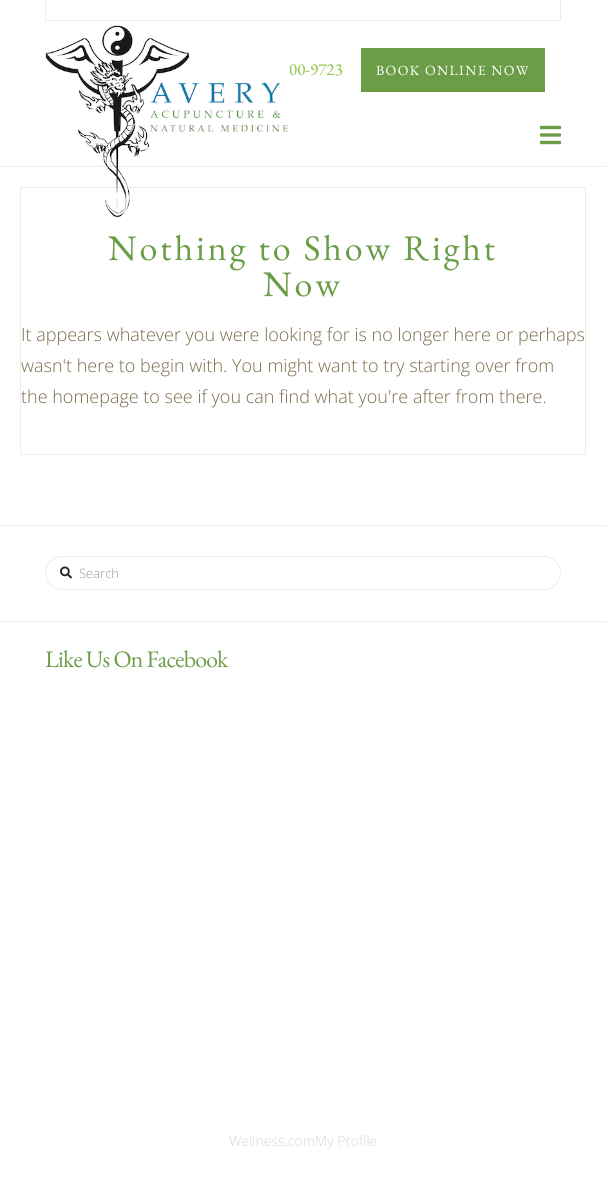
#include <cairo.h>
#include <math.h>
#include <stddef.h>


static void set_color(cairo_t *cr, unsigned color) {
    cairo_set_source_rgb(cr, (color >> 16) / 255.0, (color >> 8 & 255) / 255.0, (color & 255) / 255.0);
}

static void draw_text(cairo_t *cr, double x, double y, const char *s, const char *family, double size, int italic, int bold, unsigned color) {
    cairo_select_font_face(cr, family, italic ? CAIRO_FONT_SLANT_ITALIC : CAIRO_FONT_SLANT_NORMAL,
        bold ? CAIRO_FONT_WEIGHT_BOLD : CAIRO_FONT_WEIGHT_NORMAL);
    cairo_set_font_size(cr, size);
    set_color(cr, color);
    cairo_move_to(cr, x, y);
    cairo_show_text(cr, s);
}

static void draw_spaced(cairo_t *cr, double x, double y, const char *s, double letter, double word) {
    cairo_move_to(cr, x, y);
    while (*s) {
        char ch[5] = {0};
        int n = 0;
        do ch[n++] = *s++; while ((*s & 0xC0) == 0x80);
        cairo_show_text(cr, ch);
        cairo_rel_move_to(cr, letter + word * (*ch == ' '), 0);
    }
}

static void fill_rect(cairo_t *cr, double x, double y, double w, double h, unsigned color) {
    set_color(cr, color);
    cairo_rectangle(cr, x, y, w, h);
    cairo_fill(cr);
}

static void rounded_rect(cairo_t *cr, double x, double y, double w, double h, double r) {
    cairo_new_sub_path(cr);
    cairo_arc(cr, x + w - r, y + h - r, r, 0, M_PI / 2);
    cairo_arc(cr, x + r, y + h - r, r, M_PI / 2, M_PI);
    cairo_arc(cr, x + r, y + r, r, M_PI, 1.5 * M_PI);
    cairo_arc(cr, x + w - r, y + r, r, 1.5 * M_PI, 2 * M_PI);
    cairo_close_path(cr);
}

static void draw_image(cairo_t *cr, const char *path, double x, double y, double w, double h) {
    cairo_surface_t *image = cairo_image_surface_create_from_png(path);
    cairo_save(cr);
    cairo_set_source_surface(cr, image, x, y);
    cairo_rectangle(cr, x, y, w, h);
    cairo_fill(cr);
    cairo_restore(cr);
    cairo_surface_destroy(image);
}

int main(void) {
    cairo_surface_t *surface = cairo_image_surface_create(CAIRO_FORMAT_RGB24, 606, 1177);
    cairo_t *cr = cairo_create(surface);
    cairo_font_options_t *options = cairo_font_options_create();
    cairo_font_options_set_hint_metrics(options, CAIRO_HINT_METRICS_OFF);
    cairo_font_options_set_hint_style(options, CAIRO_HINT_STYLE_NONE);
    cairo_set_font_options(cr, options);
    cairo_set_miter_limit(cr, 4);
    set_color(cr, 0xFFFFFF);
    cairo_paint(cr);
    fill_rect(cr, 0, 166, 606, 1, 0xECECEC);
    draw_text(cr, 289, 75, "00-9723", "EB Garamond", 17, 0, 0, 0x8ABE3C);
    cairo_rectangle(cr, 20.5, 187.5, 565, 267);
    set_color(cr, 0xECECEC);
    cairo_set_line_width(cr, 1);
    cairo_stroke(cr);
    draw_image(cr, "assets/img1.png", 45, 25, 245, 192);
    draw_image(cr, "assets/img2.png", 540, 125, 21, 20);
    cairo_new_path(cr);
    cairo_move_to(cr, 561, 0);
    cairo_line_to(cr, 561, 21);
    cairo_line_to(cr, 560, 20);
    cairo_line_to(cr, 560, 0);
    cairo_close_path(cr);
    cairo_fill(cr);
    cairo_set_source_rgba(cr, 0, 0, 0, 0.07);
    cairo_new_path(cr);
    cairo_move_to(cr, 561, 21);
    cairo_line_to(cr, 45, 21);
    cairo_line_to(cr, 46, 20);
    cairo_line_to(cr, 560, 20);
    cairo_close_path(cr);
    cairo_fill(cr);
    cairo_new_path(cr);
    cairo_move_to(cr, 45, 21);
    cairo_line_to(cr, 45, 0);
    cairo_line_to(cr, 46, 0);
    cairo_line_to(cr, 46, 20);
    cairo_close_path(cr);
    cairo_fill(cr);
    fill_rect(cr, 361, 48, 184, 44, 0x6B9D47);
    cairo_set_font_size(cr, 14);
    set_color(cr, 0xFFFFFF);
    draw_spaced(cr, 376, 75, "BOOK ONLINE NOW", 1.4, 0);
    cairo_set_font_size(cr, 36);
    set_color(cr, 0x6B9D47);
    draw_spaced(cr, 108, 260, "Nothing to Show Right", 2.95, 0);
    draw_spaced(cr, 263, 296, "Now", 2.95, 0);
    draw_text(cr, 21, 341, "It appears whatever you were looking for is no longer here or perhaps", "Open Sans Light", 18, 0, 0, 0x7A6D4A);
    draw_text(cr, 21, 372, "wasn't here to begin with. You might want to try starting over from", "Open Sans Light", 18, 0, 0, 0x7A6D4A);
    draw_text(cr, 21, 403, "the homepage to see if you can find what you're after from there.", "Open Sans Light", 18, 0, 0, 0x7A6D4A);
    fill_rect(cr, 0, 525, 606, 1, 0xECECEC);
    rounded_rect(cr, 45.5, 556.5, 515, 33, 16.5);
    cairo_stroke(cr);
    draw_image(cr, "assets/img3.png", 60, 566, 12, 13);
    draw_text(cr, 79, 578, "Search", "Open Sans Light", 13, 0, 0, 0x999999);
    fill_rect(cr, 0, 621, 606, 1, 0xECECEC);
    cairo_select_font_face(cr, "EB Garamond", CAIRO_FONT_SLANT_NORMAL, CAIRO_FONT_WEIGHT_NORMAL);
    cairo_set_font_size(cr, 23.75);
    set_color(cr, 0x6B9D47);
    draw_spaced(cr, 45, 667, "Like Us On Facebook", -0.8, 0);
    draw_text(cr, 229, 1146, "Wellness.comMy Profile", "Open Sans Light", 14, 0, 0, 0xD5D5D5);
    cairo_surface_write_to_png(surface, "output.png");
    cairo_font_options_destroy(options);
    cairo_destroy(cr);
    cairo_surface_destroy(surface);
    return 0;
}
